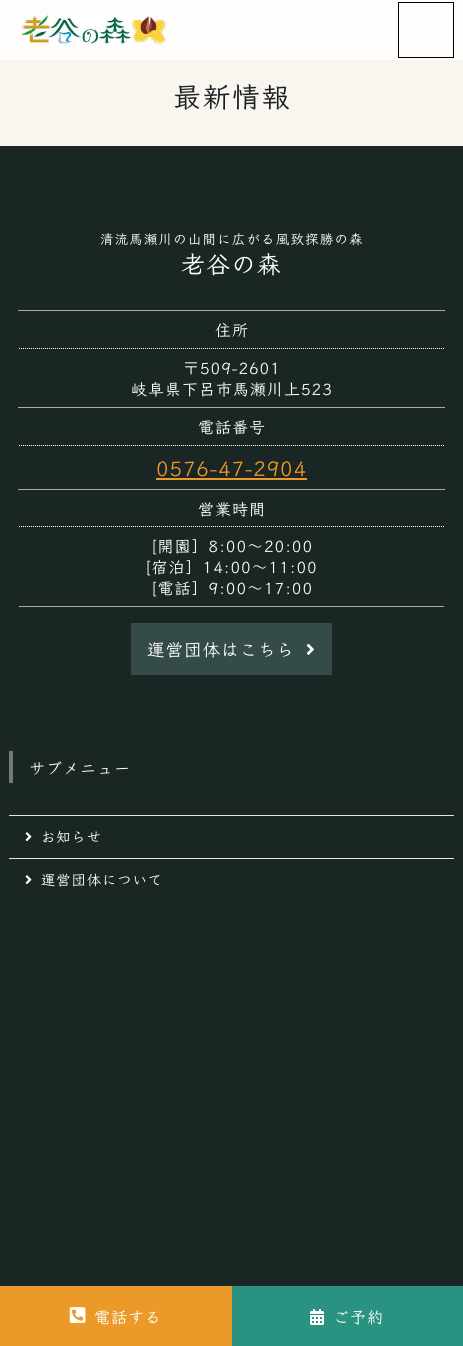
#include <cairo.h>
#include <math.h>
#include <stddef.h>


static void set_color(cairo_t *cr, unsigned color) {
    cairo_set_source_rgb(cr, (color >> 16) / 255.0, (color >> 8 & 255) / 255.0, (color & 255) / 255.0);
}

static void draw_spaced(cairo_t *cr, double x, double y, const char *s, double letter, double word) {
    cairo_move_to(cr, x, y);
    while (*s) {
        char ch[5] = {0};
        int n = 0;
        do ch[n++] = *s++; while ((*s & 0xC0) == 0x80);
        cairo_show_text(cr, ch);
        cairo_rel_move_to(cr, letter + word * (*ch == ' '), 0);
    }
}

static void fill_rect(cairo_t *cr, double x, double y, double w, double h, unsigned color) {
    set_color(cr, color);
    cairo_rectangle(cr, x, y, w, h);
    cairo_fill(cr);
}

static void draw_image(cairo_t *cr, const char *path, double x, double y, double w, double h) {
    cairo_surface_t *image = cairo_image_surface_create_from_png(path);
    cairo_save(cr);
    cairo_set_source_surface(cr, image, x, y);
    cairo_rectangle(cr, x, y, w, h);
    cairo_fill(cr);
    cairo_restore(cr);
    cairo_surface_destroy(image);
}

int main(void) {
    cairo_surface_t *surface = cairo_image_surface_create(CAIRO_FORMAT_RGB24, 463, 1346);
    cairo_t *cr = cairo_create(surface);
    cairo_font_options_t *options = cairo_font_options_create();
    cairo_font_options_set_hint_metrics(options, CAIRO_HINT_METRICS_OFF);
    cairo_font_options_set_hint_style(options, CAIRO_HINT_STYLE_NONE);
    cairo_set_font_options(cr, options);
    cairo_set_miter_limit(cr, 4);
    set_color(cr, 0xF9F6EF);
    cairo_paint(cr);
    fill_rect(cr, 0, 0, 463, 60, 0xFEFDFC);
    cairo_rectangle(cr, 398.5, 2.5, 55, 55);
    set_color(cr, 0x000000);
    cairo_set_line_width(cr, 1);
    cairo_stroke(cr);
    draw_image(cr, "assets/img1.png", 19, 15, 149, 31);
    cairo_select_font_face(cr, "Klee One SemiBold", CAIRO_FONT_SLANT_NORMAL, CAIRO_FONT_WEIGHT_NORMAL);
    cairo_set_font_size(cr, 28);
    set_color(cr, 0x1B1F22);
    draw_spaced(cr, 173, 107, "最新情報", 1.5, 0);
    fill_rect(cr, 0, 146, 463, 1140, 0x1A2624);
    cairo_set_font_size(cr, 13.4);
    set_color(cr, 0xFFFFFF);
    draw_spaced(cr, 100, 244, "清流馬瀬川の山間に広がる風致探勝の森", 1.25, 0);
    cairo_set_font_size(cr, 24);
    draw_spaced(cr, 181, 273, "老谷の森", 1.25, 0);
    fill_rect(cr, 19, 606, 425, 1, 0xAAAAAA);
    fill_rect(cr, 18, 310, 427, 1, 0xAAAAAA);
    cairo_new_path(cr);
    cairo_move_to(cr, 19, 348.5);
    cairo_line_to(cr, 444, 348.5);
    set_color(cr, 0xFFFFFF);
    cairo_set_dash(cr, (double[]){1, 1}, 2, 0);
    cairo_stroke(cr);
    cairo_set_font_size(cr, 16);
    draw_spaced(cr, 215, 336, "住所", 1, 0);
    draw_spaced(cr, 183, 374, "〒509-2601", 1, 0);
    draw_spaced(cr, 131, 395, "岐阜県下呂市馬瀬川上523", 1, 0);
    fill_rect(cr, 18, 407, 427, 1, 0xAAAAAA);
    cairo_new_path(cr);
    cairo_move_to(cr, 19, 445.5);
    cairo_line_to(cr, 444, 445.5);
    set_color(cr, 0xFFFFFF);
    cairo_stroke(cr);
    draw_spaced(cr, 198, 433, "電話番号", 1, 0);
    cairo_set_font_size(cr, 20.75);
    set_color(cr, 0xEB9929);
    draw_spaced(cr, 156, 476, "0576-47-2904", 1, 0);
    fill_rect(cr, 156, 478, 151, 2, 0xEB9929);
    fill_rect(cr, 18, 489, 427, 1, 0xAAAAAA);
    cairo_new_path(cr);
    cairo_move_to(cr, 19, 526.5);
    cairo_line_to(cr, 444, 526.5);
    set_color(cr, 0xFFFFFF);
    cairo_stroke(cr);
    cairo_set_font_size(cr, 16);
    draw_spaced(cr, 198, 515, "営業時間", 1, 0);
    draw_spaced(cr, 151, 552, "[開園］8:00～20:00", 1, 0);
    draw_spaced(cr, 145, 573, "[宿泊］14:00～11:00", 1, 0);
    draw_spaced(cr, 151, 594, "[電話］9:00～17:00", 1, 0);
    fill_rect(cr, 131, 623, 201, 52, 0x344B47);
    cairo_set_font_size(cr, 17.5);
    set_color(cr, 0xFFFFFF);
    draw_spaced(cr, 147, 656, "運営団体はこちら", 1, 0);
    draw_image(cr, "assets/img2.png", 306, 643, 8, 12);
    fill_rect(cr, 9, 751, 4, 32, 0x777777);
    cairo_set_font_size(cr, 16);
    set_color(cr, 0xFFFFFF);
    draw_spaced(cr, 29, 774, "サブメニュー", 1, 0);
    fill_rect(cr, 9, 815, 445, 1, 0xE3E3E3);
    draw_image(cr, "assets/img3.png", 25, 832, 7, 9);
    cairo_set_font_size(cr, 14.25);
    set_color(cr, 0xFFFFFF);
    draw_spaced(cr, 41, 842, "お知らせ", 1, 0);
    fill_rect(cr, 9, 858, 445, 1, 0xE3E3E3);
    draw_image(cr, "assets/img3.png", 25, 875, 7, 9);
    set_color(cr, 0xFFFFFF);
    draw_spaced(cr, 41, 885, "運営団体について", 1, 0);
    fill_rect(cr, 0, 1286, 232, 60, 0xEB9929);
    draw_image(cr, "assets/img4.png", 69, 1307, 17, 16);
    cairo_set_font_size(cr, 16);
    set_color(cr, 0xFFFFFF);
    draw_spaced(cr, 94, 1323, "電話する", 1, 0);
    fill_rect(cr, 232, 1286, 231, 60, 0x299280);
    draw_image(cr, "assets/img5.png", 310, 1309, 14, 16);
    set_color(cr, 0xFFFFFF);
    draw_spaced(cr, 333, 1323, "ご予約", 1, 0);
    cairo_surface_write_to_png(surface, "output.png");
    cairo_font_options_destroy(options);
    cairo_destroy(cr);
    cairo_surface_destroy(surface);
    return 0;
}
